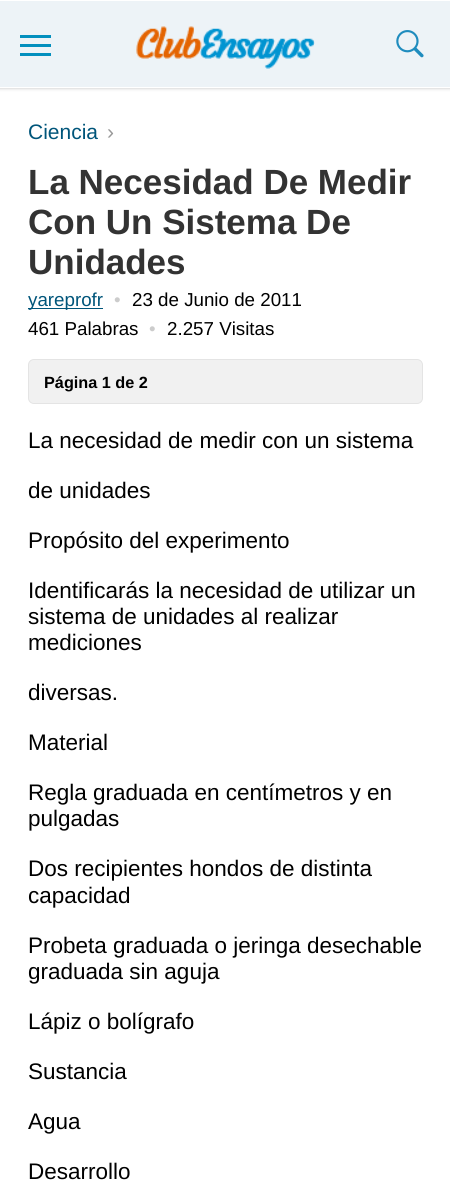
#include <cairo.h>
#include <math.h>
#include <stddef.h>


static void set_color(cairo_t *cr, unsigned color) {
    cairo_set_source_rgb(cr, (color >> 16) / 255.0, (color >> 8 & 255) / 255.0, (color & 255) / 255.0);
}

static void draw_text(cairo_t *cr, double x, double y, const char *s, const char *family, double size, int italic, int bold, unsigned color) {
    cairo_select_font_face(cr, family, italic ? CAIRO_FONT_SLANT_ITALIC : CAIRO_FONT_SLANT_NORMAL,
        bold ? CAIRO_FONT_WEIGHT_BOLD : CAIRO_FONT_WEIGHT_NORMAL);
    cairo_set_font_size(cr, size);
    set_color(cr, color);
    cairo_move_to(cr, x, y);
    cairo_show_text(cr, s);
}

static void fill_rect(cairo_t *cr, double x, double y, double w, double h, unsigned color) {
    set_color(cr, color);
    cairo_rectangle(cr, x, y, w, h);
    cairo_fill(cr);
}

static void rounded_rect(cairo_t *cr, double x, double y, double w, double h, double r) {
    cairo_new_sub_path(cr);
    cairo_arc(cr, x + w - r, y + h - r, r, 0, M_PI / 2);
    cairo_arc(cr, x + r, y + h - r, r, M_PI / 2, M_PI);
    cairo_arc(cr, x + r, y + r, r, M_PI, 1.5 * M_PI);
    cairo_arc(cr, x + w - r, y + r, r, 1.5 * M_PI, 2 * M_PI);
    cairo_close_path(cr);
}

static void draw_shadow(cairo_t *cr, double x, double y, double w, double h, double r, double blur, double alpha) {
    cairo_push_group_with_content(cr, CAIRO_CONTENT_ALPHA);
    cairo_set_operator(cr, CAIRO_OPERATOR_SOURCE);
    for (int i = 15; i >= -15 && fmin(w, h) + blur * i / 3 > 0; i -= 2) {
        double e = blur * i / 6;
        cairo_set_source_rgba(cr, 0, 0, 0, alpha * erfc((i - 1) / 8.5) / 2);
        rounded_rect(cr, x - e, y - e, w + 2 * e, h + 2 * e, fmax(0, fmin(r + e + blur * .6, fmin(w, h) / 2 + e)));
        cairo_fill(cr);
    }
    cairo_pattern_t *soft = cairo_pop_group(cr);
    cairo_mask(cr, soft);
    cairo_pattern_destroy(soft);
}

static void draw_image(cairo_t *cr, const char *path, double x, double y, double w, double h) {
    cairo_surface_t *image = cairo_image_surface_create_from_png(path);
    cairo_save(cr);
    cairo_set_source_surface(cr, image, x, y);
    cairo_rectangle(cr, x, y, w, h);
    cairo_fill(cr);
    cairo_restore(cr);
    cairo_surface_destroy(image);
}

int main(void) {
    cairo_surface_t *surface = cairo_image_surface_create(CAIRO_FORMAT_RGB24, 450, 1198);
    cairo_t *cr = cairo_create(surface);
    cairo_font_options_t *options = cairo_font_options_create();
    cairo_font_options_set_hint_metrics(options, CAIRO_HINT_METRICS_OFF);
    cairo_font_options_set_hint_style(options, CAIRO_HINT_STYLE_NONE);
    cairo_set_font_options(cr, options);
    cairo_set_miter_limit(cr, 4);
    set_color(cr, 0xFFFFFF);
    cairo_paint(cr);
    set_color(cr, 0x000000);
    draw_shadow(cr, -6, 0, 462, 88, 0, 2, 0.25);
    set_color(cr, 0xEDF3F7);
    cairo_rectangle(cr, -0.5, 0.5, 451, 87);
    cairo_fill_preserve(cr);
    set_color(cr, 0xFFFFFF);
    cairo_set_line_width(cr, 1);
    cairo_stroke(cr);
    fill_rect(cr, 20, 35, 31, 3, 0x038FBE);
    fill_rect(cr, 20, 44, 31, 3, 0x038FBE);
    fill_rect(cr, 20, 53, 31, 3, 0x038FBE);
    draw_image(cr, "assets/img1.png", 136, 26, 179, 43);
    draw_image(cr, "assets/img2.png", 396, 30, 28, 28);
    draw_text(cr, 28, 139, "Ciencia", "Liberation Sans", 21, 0, 0, 0x00557A);
    draw_text(cr, 107, 139, "›", "Liberation Sans", 21, 0, 0, 0x999999);
    draw_text(cr, 28, 194, "La Necesidad De Medir", "Liberation Sans", 35, 0, 1, 0x333333);
    draw_text(cr, 28, 234, "Con Un Sistema De", "Liberation Sans", 35, 0, 1, 0x333333);
    draw_text(cr, 28, 274, "Unidades", "Liberation Sans", 35, 0, 1, 0x333333);
    fill_rect(cr, 28, 308, 75, 1, 0x00557A);
    draw_text(cr, 28, 306, "yareprofr", "Liberation Sans", 18.75, 0, 0, 0x00557A);
    draw_text(cr, 114, 306, "•", "Liberation Sans", 18.75, 0, 0, 0xCCCCCC);
    draw_text(cr, 132, 306, "23 de Junio de 2011", "Liberation Sans", 18.75, 0, 0, 0x000000);
    draw_text(cr, 28, 335, "461 Palabras", "Liberation Sans", 18.75, 0, 0, 0x000000);
    draw_text(cr, 149, 335, "•", "Liberation Sans", 18.75, 0, 0, 0xCCCCCC);
    draw_text(cr, 167, 335, "2.257 Visitas", "Liberation Sans", 18.75, 0, 0, 0x000000);
    set_color(cr, 0xF1F1F1);
    rounded_rect(cr, 28.5, 359.5, 394, 44, 5.5);
    cairo_fill_preserve(cr);
    set_color(cr, 0xE4E4E4);
    cairo_stroke(cr);
    draw_text(cr, 44, 388, "Página 1 de 2", "Liberation Sans", 16.25, 0, 1, 0x000000);
    draw_text(cr, 28, 448, "La necesidad de medir con un sistema", "Liberation Sans", 22.5, 0, 0, 0x000000);
    draw_text(cr, 28, 498, "de unidades", "Liberation Sans", 22.5, 0, 0, 0x000000);
    draw_text(cr, 28, 548, "Propósito del experimento", "Liberation Sans", 22.5, 0, 0, 0x000000);
    draw_text(cr, 28, 598, "Identificarás la necesidad de utilizar un", "Liberation Sans", 22.5, 0, 0, 0x000000);
    draw_text(cr, 28, 624, "sistema de unidades al realizar", "Liberation Sans", 22.5, 0, 0, 0x000000);
    draw_text(cr, 28, 650, "mediciones", "Liberation Sans", 22.5, 0, 0, 0x000000);
    draw_text(cr, 28, 700, "diversas.", "Liberation Sans", 22.5, 0, 0, 0x000000);
    draw_text(cr, 28, 750, "Material", "Liberation Sans", 22.5, 0, 0, 0x000000);
    draw_text(cr, 28, 800, "Regla graduada en centímetros y en", "Liberation Sans", 22.5, 0, 0, 0x000000);
    draw_text(cr, 28, 826, "pulgadas", "Liberation Sans", 22.5, 0, 0, 0x000000);
    draw_text(cr, 28, 876, "Dos recipientes hondos de distinta", "Liberation Sans", 22.5, 0, 0, 0x000000);
    draw_text(cr, 28, 903, "capacidad", "Liberation Sans", 22.5, 0, 0, 0x000000);
    draw_text(cr, 28, 953, "Probeta graduada o jeringa desechable", "Liberation Sans", 22.5, 0, 0, 0x000000);
    draw_text(cr, 28, 979, "graduada sin aguja", "Liberation Sans", 22.5, 0, 0, 0x000000);
    draw_text(cr, 28, 1029, "Lápiz o bolígrafo", "Liberation Sans", 22.5, 0, 0, 0x000000);
    draw_text(cr, 28, 1079, "Sustancia", "Liberation Sans", 22.5, 0, 0, 0x000000);
    draw_text(cr, 28, 1129, "Agua", "Liberation Sans", 22.5, 0, 0, 0x000000);
    draw_text(cr, 28, 1179, "Desarrollo", "Liberation Sans", 22.5, 0, 0, 0x000000);
    cairo_surface_write_to_png(surface, "output.png");
    cairo_font_options_destroy(options);
    cairo_destroy(cr);
    cairo_surface_destroy(surface);
    return 0;
}
